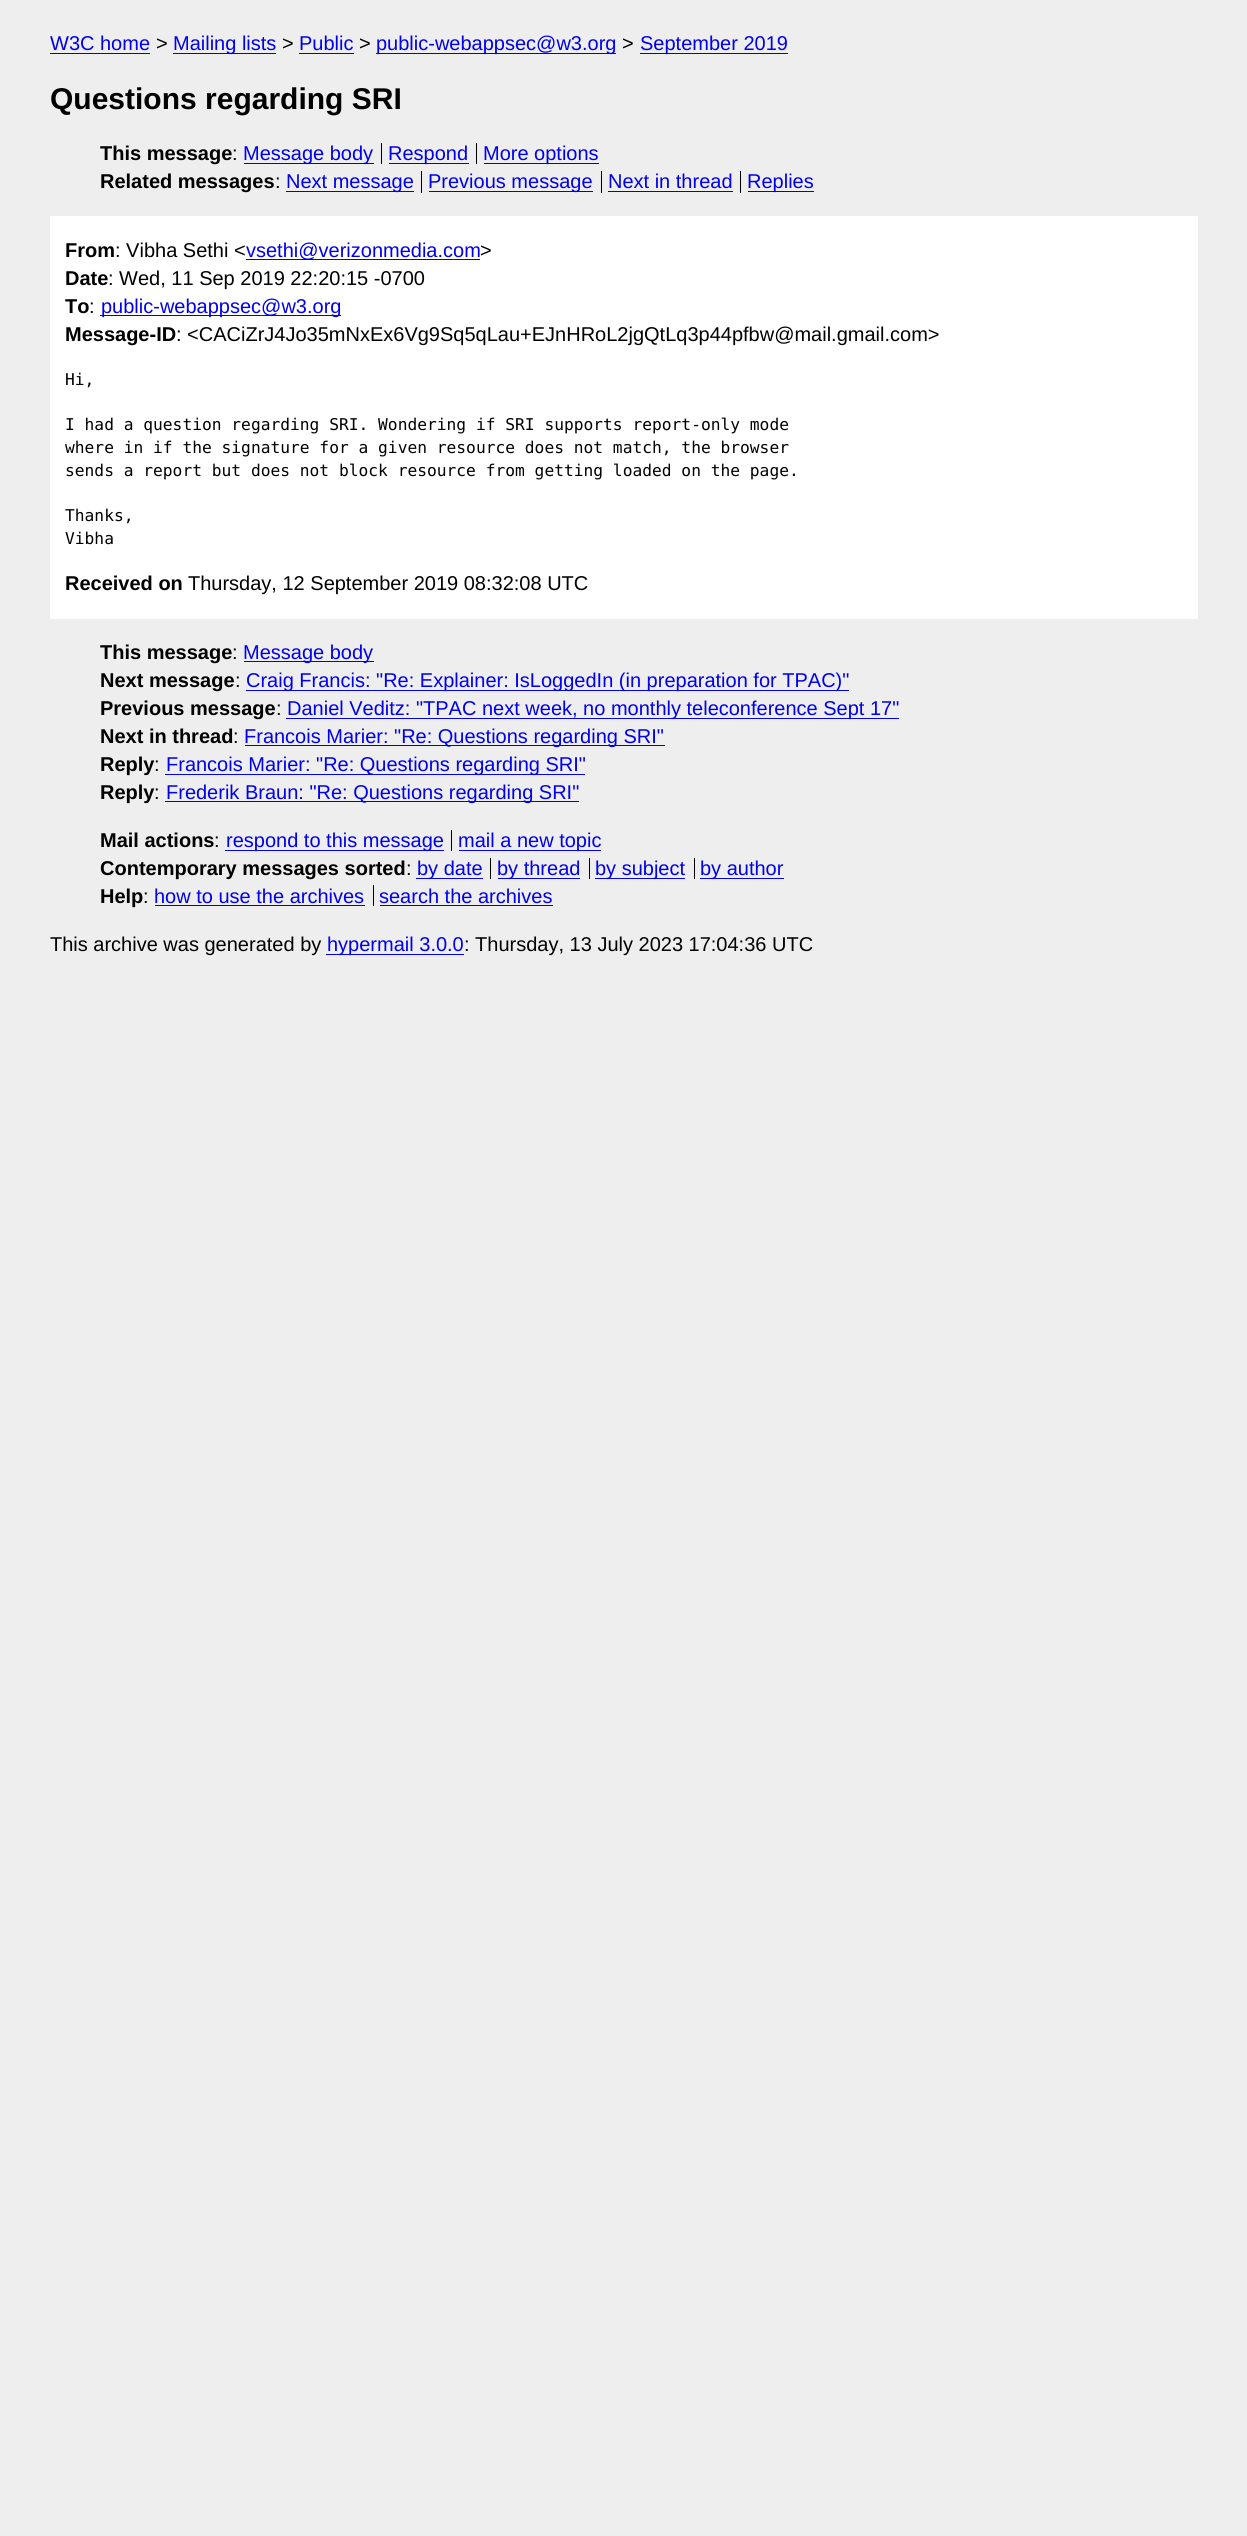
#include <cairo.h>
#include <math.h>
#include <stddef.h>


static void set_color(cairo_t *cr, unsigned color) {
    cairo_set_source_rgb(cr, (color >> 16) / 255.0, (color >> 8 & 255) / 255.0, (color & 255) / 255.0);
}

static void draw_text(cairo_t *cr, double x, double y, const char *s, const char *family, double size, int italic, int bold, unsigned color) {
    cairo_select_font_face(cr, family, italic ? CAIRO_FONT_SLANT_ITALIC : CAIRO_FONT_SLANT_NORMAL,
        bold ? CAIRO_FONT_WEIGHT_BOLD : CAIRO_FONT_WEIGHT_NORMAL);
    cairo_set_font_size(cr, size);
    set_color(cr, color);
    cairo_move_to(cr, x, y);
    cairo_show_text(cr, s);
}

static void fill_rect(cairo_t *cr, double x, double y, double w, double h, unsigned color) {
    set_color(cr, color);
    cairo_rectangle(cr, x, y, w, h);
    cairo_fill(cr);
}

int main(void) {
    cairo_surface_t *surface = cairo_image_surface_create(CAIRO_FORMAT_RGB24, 1247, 2536);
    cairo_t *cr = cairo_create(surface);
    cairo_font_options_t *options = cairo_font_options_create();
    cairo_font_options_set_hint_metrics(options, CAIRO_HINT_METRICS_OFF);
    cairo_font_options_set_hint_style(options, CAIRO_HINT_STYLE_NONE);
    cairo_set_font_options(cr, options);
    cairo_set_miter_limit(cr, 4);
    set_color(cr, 0xEEEEEE);
    cairo_paint(cr);
    draw_text(cr, 50, 50, "W3C home", "Liberation Sans", 20, 0, 0, 0x0000EE);
    fill_rect(cr, 50, 53, 100, 1, 0x0000EE);
    draw_text(cr, 156, 50, ">", "Liberation Sans", 20, 0, 0, 0x000000);
    fill_rect(cr, 173, 53, 103, 1, 0x0000EE);
    draw_text(cr, 173, 50, "Mailing lists", "Liberation Sans", 20, 0, 0, 0x0000EE);
    draw_text(cr, 282, 50, ">", "Liberation Sans", 20, 0, 0, 0x000000);
    draw_text(cr, 299, 50, "Public", "Liberation Sans", 20, 0, 0, 0x0000EE);
    fill_rect(cr, 299, 53, 55, 1, 0x0000EE);
    draw_text(cr, 359, 50, ">", "Liberation Sans", 20, 0, 0, 0x000000);
    fill_rect(cr, 376, 53, 240, 1, 0x0000EE);
    draw_text(cr, 376, 50, "public-webappsec@w3.org", "Liberation Sans", 20, 0, 0, 0x0000EE);
    draw_text(cr, 622, 50, ">", "Liberation Sans", 20, 0, 0, 0x000000);
    fill_rect(cr, 640, 53, 148, 1, 0x0000EE);
    draw_text(cr, 640, 50, "September 2019", "Liberation Sans", 20, 0, 0, 0x0000EE);
    draw_text(cr, 50, 109, "Questions regarding SRI", "Liberation Sans", 30, 0, 1, 0x000000);
    draw_text(cr, 100, 160, "This message", "Liberation Sans", 20, 0, 1, 0x000000);
    draw_text(cr, 232, 160, ":", "Liberation Sans", 20, 0, 0, 0x000000);
    fill_rect(cr, 244, 163, 130, 1, 0x0000EE);
    draw_text(cr, 243, 160, "Message body", "Liberation Sans", 20, 0, 0, 0x0000EE);
    fill_rect(cr, 381, 143, 1, 21, 0x000000);
    fill_rect(cr, 389, 163, 80, 1, 0x0000EE);
    draw_text(cr, 388, 160, "Respond", "Liberation Sans", 20, 0, 0, 0x0000EE);
    fill_rect(cr, 484, 163, 115, 1, 0x0000EE);
    draw_text(cr, 483, 160, "More options", "Liberation Sans", 20, 0, 0, 0x0000EE);
    fill_rect(cr, 476, 143, 1, 21, 0x000000);
    draw_text(cr, 100, 188, "Related messages", "Liberation Sans", 20, 0, 1, 0x000000);
    draw_text(cr, 275, 188, ":", "Liberation Sans", 20, 0, 0, 0x000000);
    fill_rect(cr, 286, 191, 128, 1, 0x0000EE);
    draw_text(cr, 286, 188, "Next message", "Liberation Sans", 20, 0, 0, 0x0000EE);
    fill_rect(cr, 429, 191, 164, 1, 0x0000EE);
    draw_text(cr, 428, 188, "Previous message", "Liberation Sans", 20, 0, 0, 0x0000EE);
    fill_rect(cr, 421, 171, 1, 22, 0x000000);
    draw_text(cr, 608, 188, "Next in thread", "Liberation Sans", 20, 0, 0, 0x0000EE);
    fill_rect(cr, 601, 171, 1, 22, 0x000000);
    fill_rect(cr, 608, 191, 125, 1, 0x0000EE);
    fill_rect(cr, 748, 191, 66, 1, 0x0000EE);
    draw_text(cr, 747, 188, "Replies", "Liberation Sans", 20, 0, 0, 0x0000EE);
    fill_rect(cr, 740, 171, 1, 22, 0x000000);
    fill_rect(cr, 50, 216, 1148, 403, 0xFFFFFF);
    draw_text(cr, 65, 257, "From", "Liberation Sans", 20, 0, 1, 0x000000);
    draw_text(cr, 115, 257, ": Vibha Sethi <", "Liberation Sans", 20, 0, 0, 0x000000);
    fill_rect(cr, 246, 259, 234, 1, 0x0000EE);
    draw_text(cr, 246, 257, "vsethi@verizonmedia.com", "Liberation Sans", 20, 0, 0, 0x0000EE);
    draw_text(cr, 480, 257, ">", "Liberation Sans", 20, 0, 0, 0x000000);
    draw_text(cr, 65, 285, "Date", "Liberation Sans", 20, 0, 1, 0x000000);
    draw_text(cr, 108, 285, ": Wed, 11 Sep 2019 22:20:15 -0700", "Liberation Sans", 20, 0, 0, 0x000000);
    draw_text(cr, 65, 313, "To", "Liberation Sans", 20, 0, 1, 0x000000);
    draw_text(cr, 89, 313, ":", "Liberation Sans", 20, 0, 0, 0x000000);
    fill_rect(cr, 100, 315, 241, 1, 0x0000EE);
    draw_text(cr, 101, 313, "public-webappsec@w3.org", "Liberation Sans", 20, 0, 0, 0x0000EE);
    draw_text(cr, 65, 341, "Message-ID", "Liberation Sans", 20, 0, 1, 0x000000);
    draw_text(cr, 176, 341, ": <CACiZrJ4Jo35mNxEx6Vg9Sq5qLau+EJnHRoL2jgQtLq3p44pfbw@mail.gmail.com>", "Liberation Sans", 20, 0, 0, 0x000000);
    draw_text(cr, 65, 385, "Hi,", "DejaVu Sans Mono", 16.25, 0, 0, 0x000000);
    draw_text(cr, 65, 430, "I had a question regarding SRI. Wondering if SRI supports report-only mode", "DejaVu Sans Mono", 16.25, 0, 0, 0x000000);
    draw_text(cr, 65, 453, "where in if the signature for a given resource does not match, the browser", "DejaVu Sans Mono", 16.25, 0, 0, 0x000000);
    draw_text(cr, 65, 476, "sends a report but does not block resource from getting loaded on the page.", "DejaVu Sans Mono", 16.25, 0, 0, 0x000000);
    draw_text(cr, 65, 521, "Thanks,", "DejaVu Sans Mono", 16.25, 0, 0, 0x000000);
    draw_text(cr, 65, 544, "Vibha", "DejaVu Sans Mono", 16.25, 0, 0, 0x000000);
    draw_text(cr, 65, 590, "Received on", "Liberation Sans", 20, 0, 1, 0x000000);
    draw_text(cr, 188, 590, "Thursday, 12 September 2019 08:32:08 UTC", "Liberation Sans", 20, 0, 0, 0x000000);
    draw_text(cr, 100, 659, "This message", "Liberation Sans", 20, 0, 1, 0x000000);
    draw_text(cr, 232, 659, ":", "Liberation Sans", 20, 0, 0, 0x000000);
    fill_rect(cr, 244, 661, 130, 1, 0x0000EE);
    draw_text(cr, 243, 659, "Message body", "Liberation Sans", 20, 0, 0, 0x0000EE);
    draw_text(cr, 100, 687, "Next message", "Liberation Sans", 20, 0, 1, 0x000000);
    draw_text(cr, 235, 687, ":", "Liberation Sans", 20, 0, 0, 0x000000);
    fill_rect(cr, 246, 690, 603, 1, 0x0000EE);
    draw_text(cr, 246, 687, "Craig Francis: \"Re: Explainer: IsLoggedIn (in preparation for TPAC)\"", "Liberation Sans", 20, 0, 0, 0x0000EE);
    draw_text(cr, 100, 715, "Previous message", "Liberation Sans", 20, 0, 1, 0x000000);
    draw_text(cr, 276, 715, ":", "Liberation Sans", 20, 0, 0, 0x000000);
    fill_rect(cr, 286, 718, 613, 1, 0x0000EE);
    draw_text(cr, 287, 715, "Daniel Veditz: \"TPAC next week, no monthly teleconference Sept 17\"", "Liberation Sans", 20, 0, 0, 0x0000EE);
    draw_text(cr, 100, 743, "Next in thread", "Liberation Sans", 20, 0, 1, 0x000000);
    draw_text(cr, 233, 743, ":", "Liberation Sans", 20, 0, 0, 0x000000);
    fill_rect(cr, 245, 745, 420, 1, 0x0000EE);
    draw_text(cr, 244, 743, "Francois Marier: \"Re: Questions regarding SRI\"", "Liberation Sans", 20, 0, 0, 0x0000EE);
    draw_text(cr, 100, 771, "Reply", "Liberation Sans", 20, 0, 1, 0x000000);
    draw_text(cr, 154, 771, ":", "Liberation Sans", 20, 0, 0, 0x000000);
    fill_rect(cr, 165, 774, 420, 1, 0x0000EE);
    draw_text(cr, 166, 771, "Francois Marier: \"Re: Questions regarding SRI\"", "Liberation Sans", 20, 0, 0, 0x0000EE);
    draw_text(cr, 100, 799, "Reply", "Liberation Sans", 20, 0, 1, 0x000000);
    draw_text(cr, 154, 799, ":", "Liberation Sans", 20, 0, 0, 0x000000);
    fill_rect(cr, 165, 801, 414, 1, 0x0000EE);
    draw_text(cr, 166, 799, "Frederik Braun: \"Re: Questions regarding SRI\"", "Liberation Sans", 20, 0, 0, 0x0000EE);
    draw_text(cr, 100, 847, "Mail actions", "Liberation Sans", 20, 0, 1, 0x000000);
    draw_text(cr, 214, 847, ":", "Liberation Sans", 20, 0, 0, 0x000000);
    fill_rect(cr, 225, 850, 219, 1, 0x0000EE);
    draw_text(cr, 226, 847, "respond to this message", "Liberation Sans", 20, 0, 0, 0x0000EE);
    fill_rect(cr, 459, 850, 142, 1, 0x0000EE);
    draw_text(cr, 458, 847, "mail a new topic", "Liberation Sans", 20, 0, 0, 0x0000EE);
    fill_rect(cr, 451, 830, 1, 21, 0x000000);
    draw_text(cr, 100, 875, "Contemporary messages sorted", "Liberation Sans", 20, 0, 1, 0x000000);
    draw_text(cr, 406, 875, ":", "Liberation Sans", 20, 0, 0, 0x000000);
    fill_rect(cr, 416, 878, 67, 1, 0x0000EE);
    draw_text(cr, 417, 875, "by date", "Liberation Sans", 20, 0, 0, 0x0000EE);
    fill_rect(cr, 498, 878, 82, 1, 0x0000EE);
    draw_text(cr, 497, 875, "by thread", "Liberation Sans", 20, 0, 0, 0x0000EE);
    fill_rect(cr, 490, 858, 1, 21, 0x000000);
    fill_rect(cr, 595, 878, 90, 1, 0x0000EE);
    draw_text(cr, 595, 875, "by subject", "Liberation Sans", 20, 0, 0, 0x0000EE);
    fill_rect(cr, 589, 858, 1, 21, 0x000000);
    fill_rect(cr, 700, 878, 84, 1, 0x0000EE);
    draw_text(cr, 700, 875, "by author", "Liberation Sans", 20, 0, 0, 0x0000EE);
    fill_rect(cr, 694, 858, 1, 21, 0x000000);
    draw_text(cr, 100, 903, "Help", "Liberation Sans", 20, 0, 1, 0x000000);
    draw_text(cr, 143, 903, ":", "Liberation Sans", 20, 0, 0, 0x000000);
    draw_text(cr, 154, 903, "how to use the archives", "Liberation Sans", 20, 0, 0, 0x0000EE);
    fill_rect(cr, 155, 905, 210, 1, 0x0000EE);
    draw_text(cr, 379, 903, "search the archives", "Liberation Sans", 20, 0, 0, 0x0000EE);
    fill_rect(cr, 373, 885, 1, 21, 0x000000);
    fill_rect(cr, 380, 905, 173, 1, 0x0000EE);
    draw_text(cr, 50, 951, "This archive was generated by", "Liberation Sans", 20, 0, 0, 0x000000);
    fill_rect(cr, 326, 954, 138, 1, 0x0000EE);
    draw_text(cr, 327, 951, "hypermail 3.0.0", "Liberation Sans", 20, 0, 0, 0x0000EE);
    draw_text(cr, 464, 951, ": Thursday, 13 July 2023 17:04:36 UTC", "Liberation Sans", 20, 0, 0, 0x000000);
    cairo_surface_write_to_png(surface, "output.png");
    cairo_font_options_destroy(options);
    cairo_destroy(cr);
    cairo_surface_destroy(surface);
    return 0;
}
